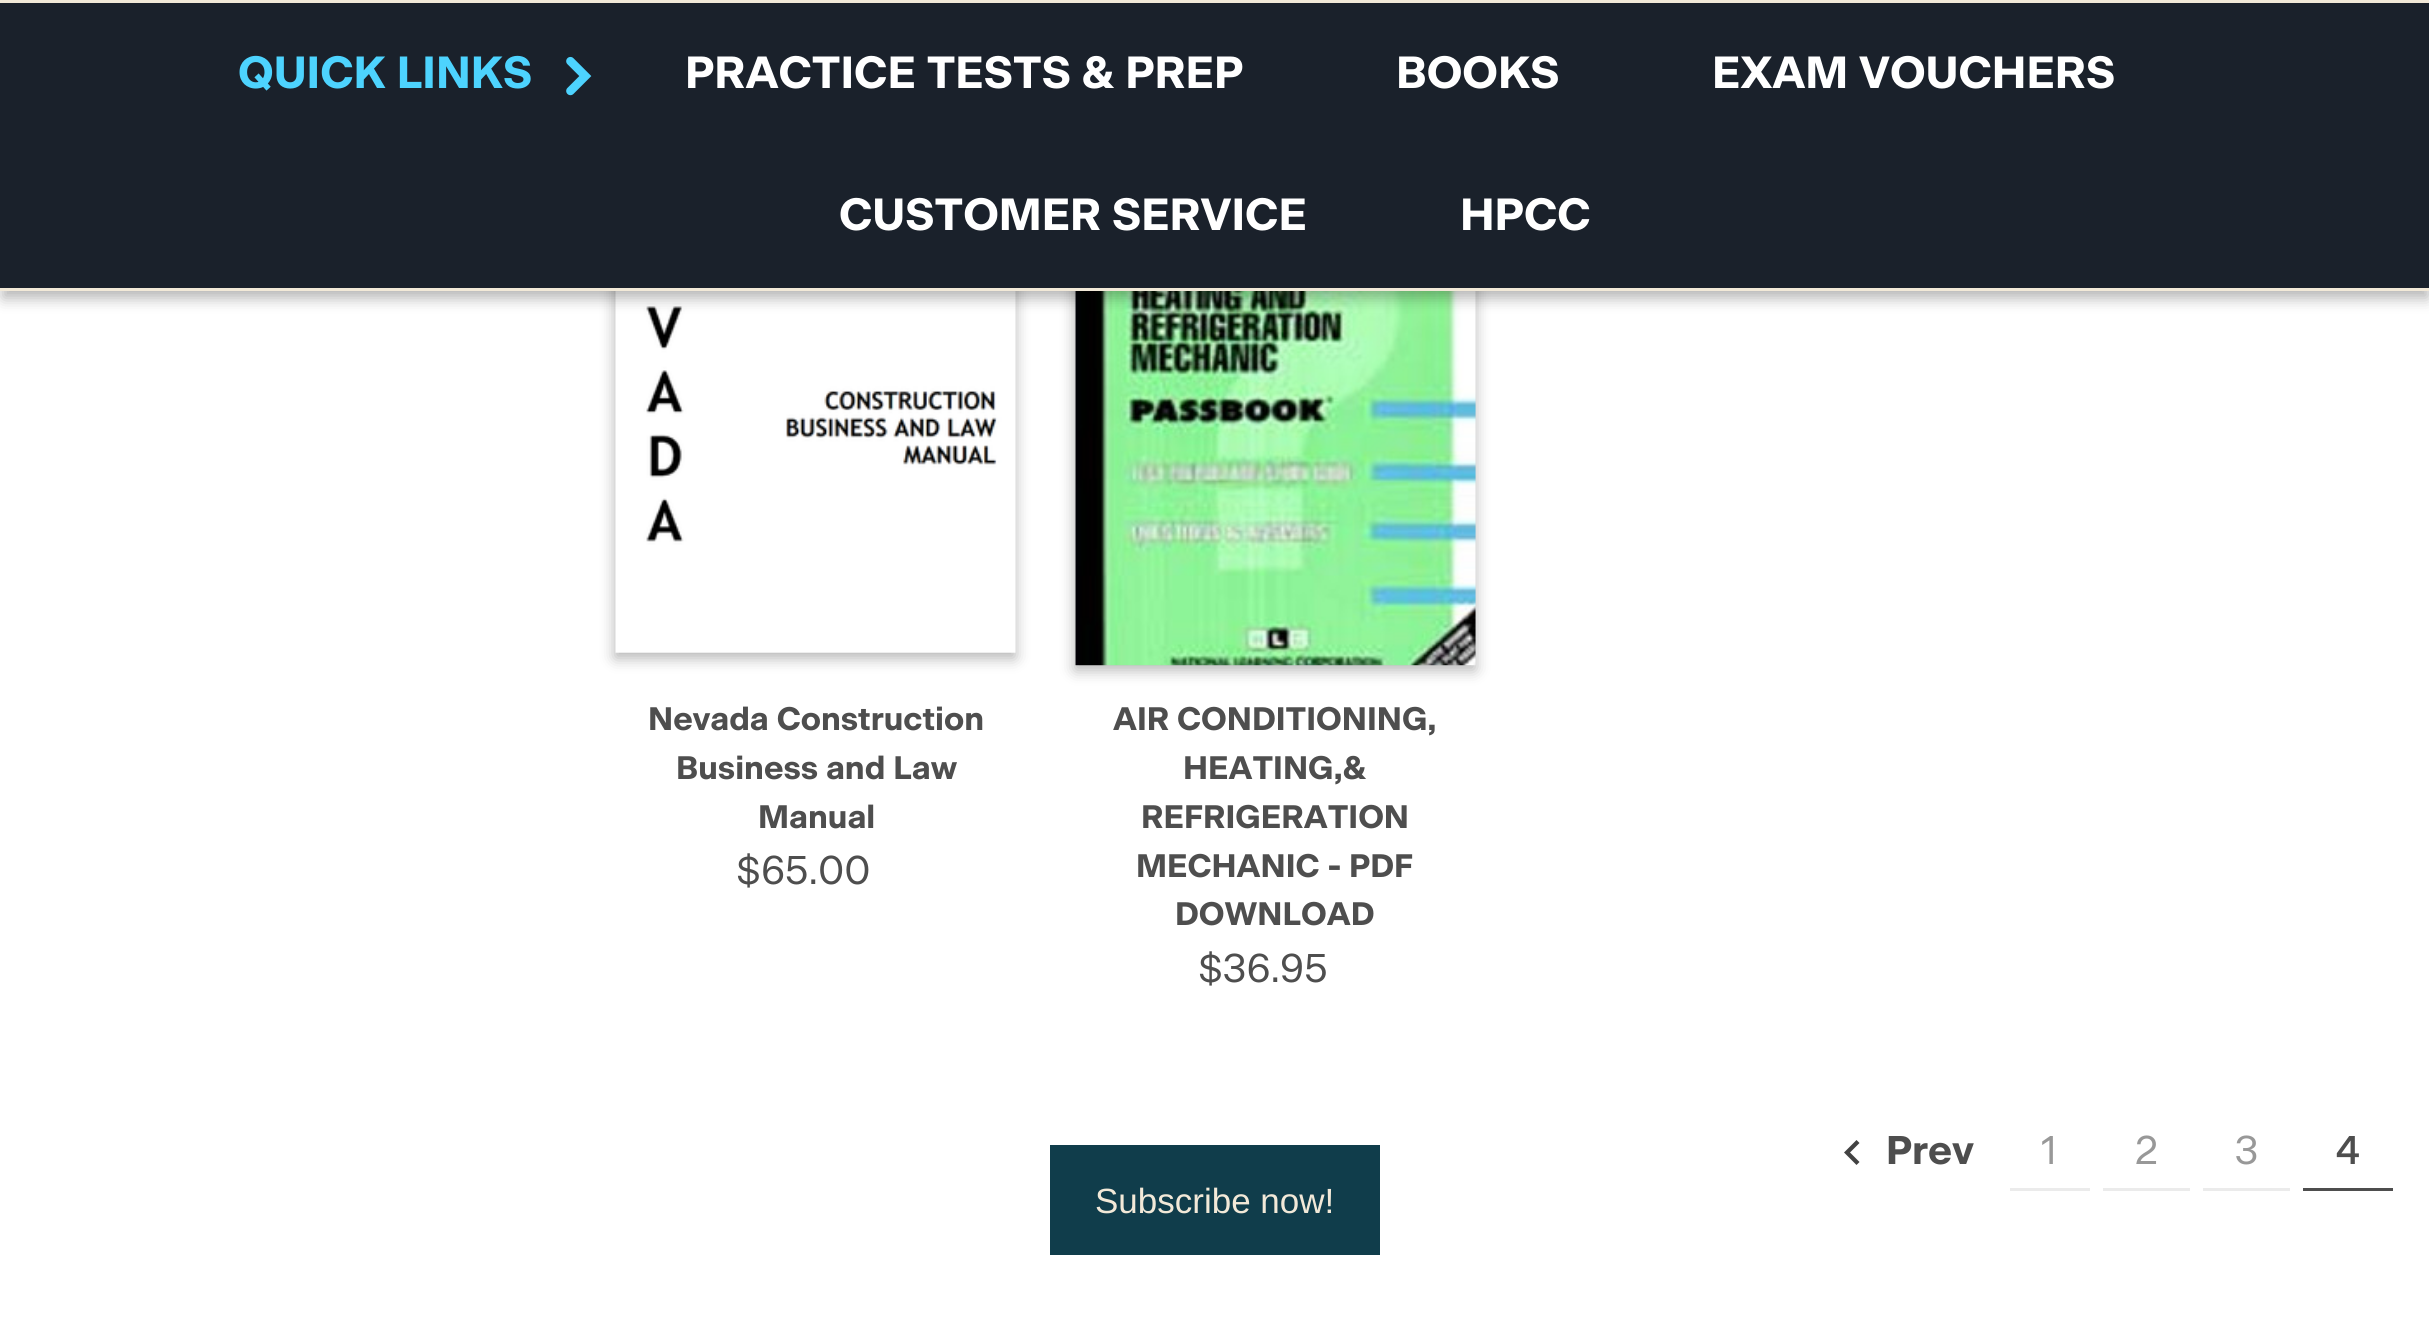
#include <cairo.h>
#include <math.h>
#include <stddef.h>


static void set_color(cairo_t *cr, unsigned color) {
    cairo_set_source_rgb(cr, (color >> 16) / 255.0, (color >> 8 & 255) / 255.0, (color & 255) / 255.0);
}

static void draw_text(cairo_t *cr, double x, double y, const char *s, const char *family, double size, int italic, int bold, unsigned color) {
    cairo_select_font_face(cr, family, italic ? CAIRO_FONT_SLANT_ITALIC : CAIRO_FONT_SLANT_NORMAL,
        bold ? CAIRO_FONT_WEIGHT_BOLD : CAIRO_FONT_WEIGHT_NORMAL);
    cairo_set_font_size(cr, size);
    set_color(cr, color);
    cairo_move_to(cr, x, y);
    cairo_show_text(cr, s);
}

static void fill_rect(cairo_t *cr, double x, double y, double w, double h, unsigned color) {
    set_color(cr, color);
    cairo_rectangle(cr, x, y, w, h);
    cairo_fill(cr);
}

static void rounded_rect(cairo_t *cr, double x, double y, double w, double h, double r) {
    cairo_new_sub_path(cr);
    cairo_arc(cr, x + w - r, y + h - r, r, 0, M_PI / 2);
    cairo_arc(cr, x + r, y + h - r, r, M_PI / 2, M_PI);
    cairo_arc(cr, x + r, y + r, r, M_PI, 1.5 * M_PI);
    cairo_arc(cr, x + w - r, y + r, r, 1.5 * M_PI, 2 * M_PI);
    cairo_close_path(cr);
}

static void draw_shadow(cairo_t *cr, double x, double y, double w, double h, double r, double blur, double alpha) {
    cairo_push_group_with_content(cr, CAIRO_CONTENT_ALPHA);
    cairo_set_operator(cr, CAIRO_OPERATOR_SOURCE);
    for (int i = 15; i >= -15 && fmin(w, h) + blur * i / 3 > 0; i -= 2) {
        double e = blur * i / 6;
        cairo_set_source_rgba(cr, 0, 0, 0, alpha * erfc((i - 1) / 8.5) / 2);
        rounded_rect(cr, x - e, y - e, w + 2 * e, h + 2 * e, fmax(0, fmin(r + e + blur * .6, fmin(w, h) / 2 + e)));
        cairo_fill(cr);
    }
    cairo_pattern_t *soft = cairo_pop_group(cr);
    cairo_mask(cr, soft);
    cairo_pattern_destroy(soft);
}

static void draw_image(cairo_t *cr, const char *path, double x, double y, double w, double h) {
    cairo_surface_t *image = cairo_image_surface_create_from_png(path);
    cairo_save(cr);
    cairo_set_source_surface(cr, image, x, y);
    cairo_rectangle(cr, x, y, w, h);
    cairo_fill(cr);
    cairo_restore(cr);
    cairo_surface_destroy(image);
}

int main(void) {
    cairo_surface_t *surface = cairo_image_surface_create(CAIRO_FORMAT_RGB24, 2429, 1333);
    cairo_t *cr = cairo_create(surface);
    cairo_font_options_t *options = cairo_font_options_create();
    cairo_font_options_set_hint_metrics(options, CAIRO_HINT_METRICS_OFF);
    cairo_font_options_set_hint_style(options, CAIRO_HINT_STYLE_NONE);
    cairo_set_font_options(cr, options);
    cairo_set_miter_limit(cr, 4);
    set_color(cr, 0xFFFFFF);
    cairo_paint(cr);
    set_color(cr, 0x000000);
    draw_shadow(cr, 615, 165, 400, 493, 0, 7.5, 0.3);
    draw_image(cr, "assets/img2.png", 615, 291, 401, 362);
    draw_shadow(cr, 1075, 153, 400, 517, 0, 7.5, 0.3);
    draw_image(cr, "assets/img3.png", 1075, 291, 401, 375);
    draw_shadow(cr, 3, 13, 2425, 285, 0, 7.5, 0.3);
    fill_rect(cr, 0, 3, 2429, 285, 0x1A212B);
    fill_rect(cr, 0, 0, 2429, 3, 0xF2E9D8);
    fill_rect(cr, 0, 288, 2429, 3, 0xF2E9D8);
    draw_text(cr, 238, 88, "QUICK LINKS", "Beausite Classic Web", 45, 0, 1, 0x4DD3FE);
    draw_image(cr, "assets/img1.png", 566, 56, 26, 40);
    draw_text(cr, 685, 88, "PRACTICE TESTS & PREP", "Beausite Classic Web", 45, 0, 1, 0xFFFFFF);
    draw_text(cr, 1396, 88, "BOOKS", "Beausite Classic Web", 45, 0, 1, 0xFFFFFF);
    draw_text(cr, 1712, 88, "EXAM VOUCHERS", "Beausite Classic Web", 45, 0, 1, 0xFFFFFF);
    draw_text(cr, 839, 230, "CUSTOMER SERVICE", "Beausite Classic Web", 45, 0, 1, 0xFFFFFF);
    draw_text(cr, 1460, 230, "HPCC", "Beausite Classic Web", 45, 0, 1, 0xFFFFFF);
    draw_text(cr, 648, 730, "Nevada Construction", "Beausite Classic Web", 32.5, 0, 1, 0x4E4E4E);
    draw_text(cr, 676, 779, "Business and Law", "Beausite Classic Web", 32.5, 0, 1, 0x4E4E4E);
    draw_text(cr, 758, 828, "Manual", "Beausite Classic Web", 32.5, 0, 1, 0x4E4E4E);
    draw_text(cr, 736, 884, "$65.00", "Beausite Classic Web", 40, 0, 0, 0x4E4E4E);
    draw_text(cr, 1113, 730, "AIR CONDITIONING,", "Beausite Classic Web", 32.5, 0, 1, 0x4E4E4E);
    draw_text(cr, 1183, 779, "HEATING,&", "Beausite Classic Web", 32.5, 0, 1, 0x4E4E4E);
    draw_text(cr, 1141, 828, "REFRIGERATION", "Beausite Classic Web", 32.5, 0, 1, 0x4E4E4E);
    draw_text(cr, 1136, 877, "MECHANIC - PDF", "Beausite Classic Web", 32.5, 0, 1, 0x4E4E4E);
    draw_text(cr, 1175, 925, "DOWNLOAD", "Beausite Classic Web", 32.5, 0, 1, 0x4E4E4E);
    draw_text(cr, 1198, 982, "$36.95", "Beausite Classic Web", 40, 0, 0, 0x4E4E4E);
    set_color(cr, 0x424242);
    cairo_new_path(cr);
    cairo_move_to(cr, 1859.5, 1143);
    cairo_line_to(cr, 1856.5, 1140);
    cairo_line_to(cr, 1844, 1152.5);
    cairo_line_to(cr, 1856.5, 1165);
    cairo_line_to(cr, 1859.5, 1162);
    cairo_line_to(cr, 1850, 1152.5);
    cairo_close_path(cr);
    cairo_fill(cr);
    draw_text(cr, 1886, 1164, "Prev", "Beausite Classic Web", 40, 0, 1, 0x4E4E4E);
    fill_rect(cr, 2010, 1188, 80, 3, 0xEBEBEB);
    draw_text(cr, 2041, 1164, "1", "Beausite Classic Web", 40, 0, 0, 0x989898);
    fill_rect(cr, 2103, 1188, 87, 3, 0xEBEBEB);
    draw_text(cr, 2135, 1164, "2", "Beausite Classic Web", 40, 0, 0, 0x989898);
    fill_rect(cr, 2203, 1188, 87, 3, 0xEBEBEB);
    draw_text(cr, 2235, 1164, "3", "Beausite Classic Web", 40, 0, 0, 0x989898);
    fill_rect(cr, 2303, 1188, 90, 3, 0x4E4E4E);
    draw_text(cr, 2336, 1164, "4", "Beausite Classic Web Medium", 40, 0, 0, 0x4E4E4E);
    fill_rect(cr, 1050, 1145, 330, 110, 0x103D4B);
    draw_text(cr, 1095, 1213, "Subscribe now!", "Liberation Sans", 35, 0, 0, 0xF2E9D8);
    cairo_surface_write_to_png(surface, "output.png");
    cairo_font_options_destroy(options);
    cairo_destroy(cr);
    cairo_surface_destroy(surface);
    return 0;
}
